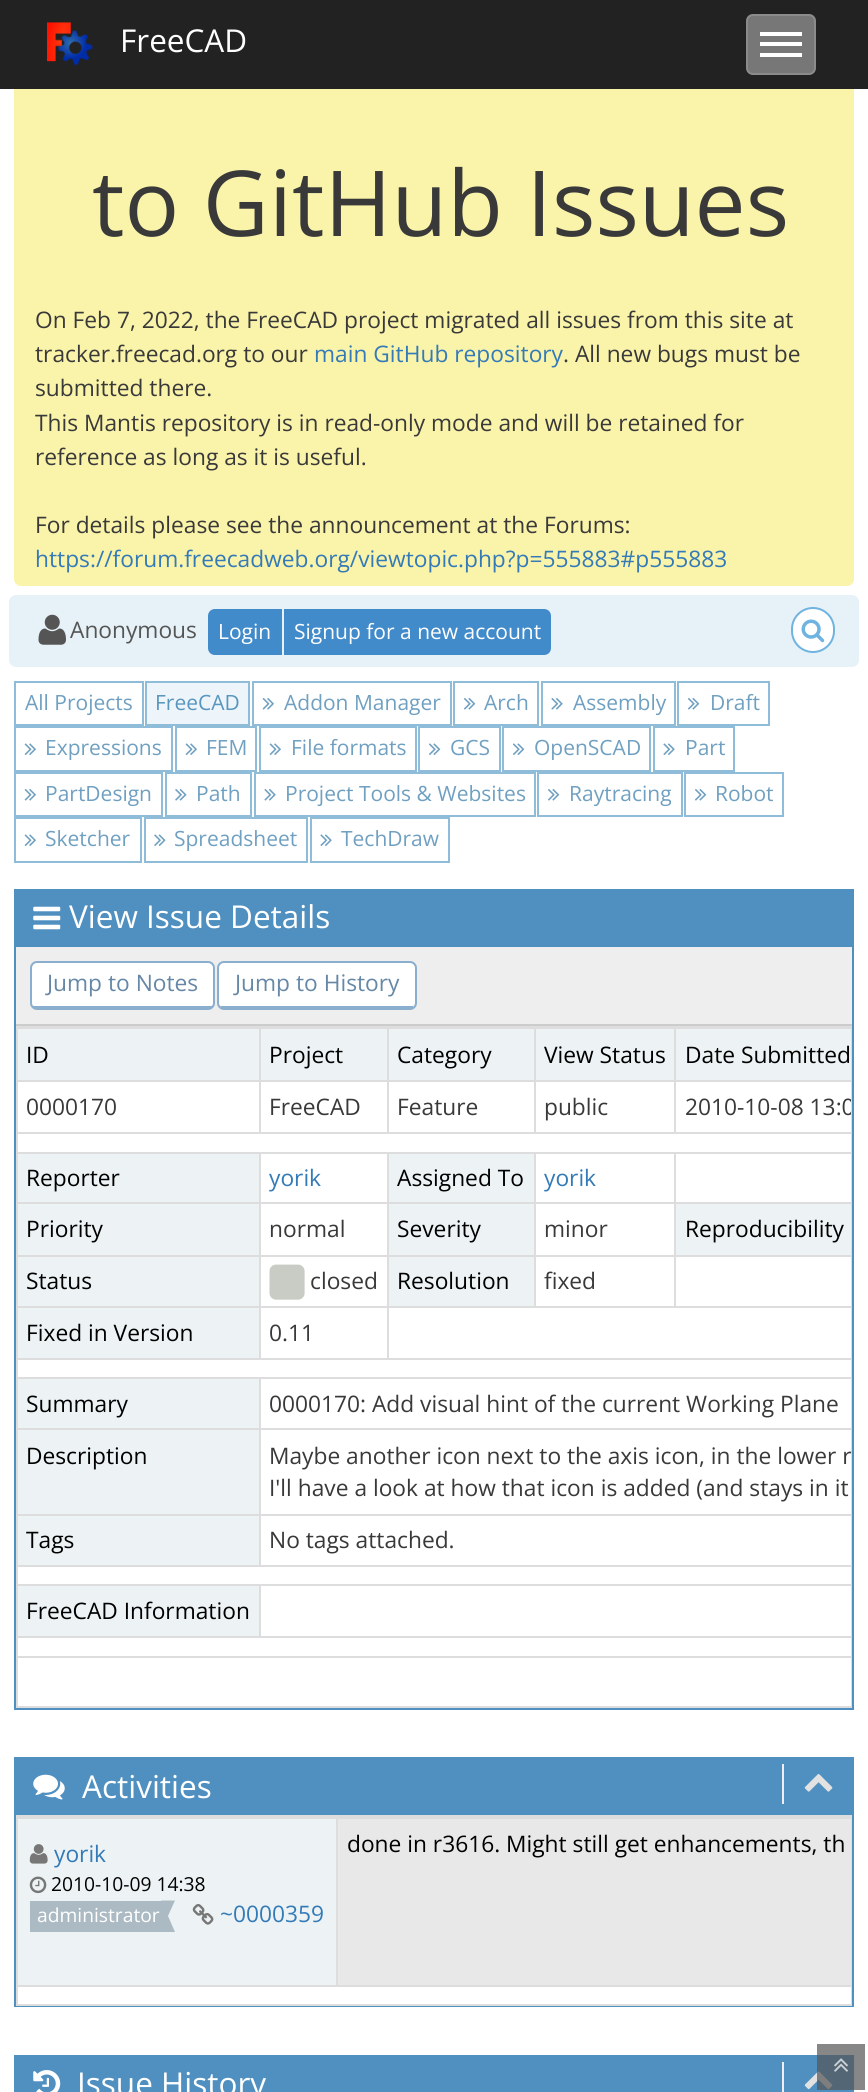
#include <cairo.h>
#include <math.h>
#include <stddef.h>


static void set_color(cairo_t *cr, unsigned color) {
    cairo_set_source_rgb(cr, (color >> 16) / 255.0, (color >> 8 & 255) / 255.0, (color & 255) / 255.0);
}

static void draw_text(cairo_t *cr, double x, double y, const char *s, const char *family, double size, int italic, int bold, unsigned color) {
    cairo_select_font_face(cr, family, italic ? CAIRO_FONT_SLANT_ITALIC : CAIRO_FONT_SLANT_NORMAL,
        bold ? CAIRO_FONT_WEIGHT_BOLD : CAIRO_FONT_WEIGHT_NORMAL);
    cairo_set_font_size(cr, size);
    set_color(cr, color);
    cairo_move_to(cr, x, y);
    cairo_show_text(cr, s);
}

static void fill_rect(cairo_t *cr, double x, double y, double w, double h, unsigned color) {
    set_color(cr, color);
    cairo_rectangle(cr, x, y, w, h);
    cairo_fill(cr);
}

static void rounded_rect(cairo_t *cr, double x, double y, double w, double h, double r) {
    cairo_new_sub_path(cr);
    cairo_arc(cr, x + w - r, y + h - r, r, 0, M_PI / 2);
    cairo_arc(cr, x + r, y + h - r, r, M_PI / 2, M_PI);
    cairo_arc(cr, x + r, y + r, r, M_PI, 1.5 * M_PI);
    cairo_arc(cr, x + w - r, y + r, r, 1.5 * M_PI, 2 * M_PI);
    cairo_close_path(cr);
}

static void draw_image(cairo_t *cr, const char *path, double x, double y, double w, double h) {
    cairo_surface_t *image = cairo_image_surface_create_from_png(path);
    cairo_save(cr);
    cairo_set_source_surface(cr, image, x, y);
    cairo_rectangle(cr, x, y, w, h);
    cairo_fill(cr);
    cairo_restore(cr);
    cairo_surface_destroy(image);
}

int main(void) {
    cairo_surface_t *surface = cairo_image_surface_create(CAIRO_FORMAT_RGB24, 868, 2092);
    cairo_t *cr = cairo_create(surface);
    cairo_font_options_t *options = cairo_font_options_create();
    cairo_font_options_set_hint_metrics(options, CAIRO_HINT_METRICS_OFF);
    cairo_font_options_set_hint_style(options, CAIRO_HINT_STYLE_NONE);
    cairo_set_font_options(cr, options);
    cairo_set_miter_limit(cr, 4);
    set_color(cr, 0xFFFFFF);
    cairo_paint(cr);
    set_color(cr, 0xFAF3AA);
    rounded_rect(cr, 14, -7, 840, 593, 7);
    cairo_fill(cr);
    fill_rect(cr, 0, 0, 868, 89, 0x222222);
    draw_image(cr, "assets/img1.png", 47, 22, 46, 43);
    draw_text(cr, 120, 52, "FreeCAD", "Open Sans", 31.5, 0, 0, 0xFFFFFF);
    set_color(cr, 0x777777);
    rounded_rect(cr, 746, 14, 70, 61, 7);
    cairo_fill(cr);
    rounded_rect(cr, 747, 15, 68, 59, 6);
    cairo_set_source_rgba(cr, 1, 1, 1, 0.15);
    cairo_stroke(cr);
    fill_rect(cr, 760, 32, 42, 4, 0xFFFFFF);
    fill_rect(cr, 760, 42, 42, 4, 0xFFFFFF);
    fill_rect(cr, 760, 53, 42, 4, 0xFFFFFF);
    draw_text(cr, 92, 236, "to GitHub Issues", "Open Sans", 91, 0, 0, 0x393939);
    draw_text(cr, 35, 328, "On Feb 7, 2022, the FreeCAD project migrated all issues from this site at", "Open Sans", 22.75, 0, 0, 0x393939);
    draw_text(cr, 35, 362, "tracker.freecad.org to our", "Open Sans", 22.75, 0, 0, 0x393939);
    draw_text(cr, 314, 362, "main GitHub repository", "Open Sans", 22.75, 0, 0, 0x337AB7);
    draw_text(cr, 563, 362, ". All new bugs must be", "Open Sans", 22.75, 0, 0, 0x393939);
    draw_text(cr, 35, 396, "submitted there.", "Open Sans", 22.75, 0, 0, 0x393939);
    draw_text(cr, 35, 431, "This Mantis repository is in read-only mode and will be retained for", "Open Sans", 22.75, 0, 0, 0x393939);
    draw_text(cr, 35, 465, "reference as long as it is useful.", "Open Sans", 22.75, 0, 0, 0x393939);
    draw_text(cr, 35, 533, "For details please see the announcement at the Forums:", "Open Sans", 22.75, 0, 0, 0x393939);
    draw_text(cr, 35, 567, "https://forum.freecadweb.org/viewtopic.php?p=555883#p555883", "Open Sans", 22.75, 0, 0, 0x337AB7);
    set_color(cr, 0xE7F2F8);
    rounded_rect(cr, 9, 595, 850, 72, 7);
    cairo_fill(cr);
    draw_image(cr, "assets/img2.png", 38, 614, 28, 31);
    draw_text(cr, 70, 638, "Anonymous", "Open Sans", 22.75, 0, 0, 0x555555);
    set_color(cr, 0x428BCA);
    cairo_new_path(cr);
    cairo_move_to(cr, 215, 610);
    cairo_line_to(cr, 281, 610);
    cairo_line_to(cr, 281, 654);
    cairo_line_to(cr, 215, 654);
    cairo_curve_to(cr, 211.5, 654, 209, 651.5, 209, 648);
    cairo_line_to(cr, 209, 616);
    cairo_curve_to(cr, 209, 612.5, 211.5, 610, 215, 610);
    cairo_close_path(cr);
    cairo_fill_preserve(cr);
    cairo_stroke(cr);
    draw_text(cr, 218, 639, "Login", "Open Sans", 21, 0, 0, 0xFFFFFF);
    set_color(cr, 0x428BCA);
    cairo_new_path(cr);
    cairo_move_to(cr, 285, 610);
    cairo_line_to(cr, 544, 610);
    cairo_curve_to(cr, 547.5, 610, 550, 612.5, 550, 616);
    cairo_line_to(cr, 550, 648);
    cairo_curve_to(cr, 550, 651.5, 547.5, 654, 544, 654);
    cairo_line_to(cr, 285, 654);
    cairo_close_path(cr);
    cairo_fill_preserve(cr);
    cairo_stroke(cr);
    draw_text(cr, 294, 639, "Signup for a new account", "Open Sans", 21, 0, 0, 0xFFFFFF);
    rounded_rect(cr, 792, 608, 42, 44, 21);
    cairo_fill_preserve(cr);
    set_color(cr, 0x6FB3E0);
    cairo_stroke(cr);
    draw_image(cr, "assets/img3.png", 801, 619, 24, 24);
    cairo_rectangle(cr, 15, 682, 128, 43);
    set_color(cr, 0x8FBCD9);
    cairo_stroke(cr);
    draw_text(cr, 25, 710, "All Projects", "Open Sans", 21, 0, 0, 0x70A0C1);
    set_color(cr, 0xEEF5FA);
    cairo_rectangle(cr, 146, 682, 103, 43);
    cairo_fill_preserve(cr);
    set_color(cr, 0x8FBCD9);
    cairo_stroke(cr);
    draw_text(cr, 155, 710, "FreeCAD", "Open Sans", 21, 0, 0, 0x5896BF);
    cairo_rectangle(cr, 253, 682, 198, 43);
    set_color(cr, 0x8FBCD9);
    cairo_stroke(cr);
    draw_image(cr, "assets/img4.png", 262, 698, 12, 12);
    draw_text(cr, 284, 710, "Addon Manager", "Open Sans", 21, 0, 0, 0x70A0C1);
    cairo_rectangle(cr, 454, 682, 84, 43);
    set_color(cr, 0x8FBCD9);
    cairo_stroke(cr);
    draw_image(cr, "assets/img5.png", 464, 698, 12, 12);
    draw_text(cr, 484, 710, "Arch", "Open Sans", 21, 0, 0, 0x70A0C1);
    cairo_rectangle(cr, 542, 682, 133, 43);
    set_color(cr, 0x8FBCD9);
    cairo_stroke(cr);
    draw_image(cr, "assets/img6.png", 551, 698, 12, 12);
    draw_text(cr, 573, 710, "Assembly", "Open Sans", 21, 0, 0, 0x70A0C1);
    cairo_rectangle(cr, 678, 682, 91, 43);
    set_color(cr, 0x8FBCD9);
    cairo_stroke(cr);
    draw_image(cr, "assets/img5.png", 688, 698, 12, 12);
    draw_text(cr, 710, 710, "Draft", "Open Sans", 21, 0, 0, 0x70A0C1);
    cairo_rectangle(cr, 15, 727, 157, 44);
    set_color(cr, 0x8FBCD9);
    cairo_stroke(cr);
    draw_image(cr, "assets/img7.png", 24, 743, 12, 12);
    draw_text(cr, 45, 755, "Expressions", "Open Sans", 21, 0, 0, 0x70A0C1);
    cairo_rectangle(cr, 176, 727, 80, 44);
    set_color(cr, 0x8FBCD9);
    cairo_stroke(cr);
    draw_image(cr, "assets/img7.png", 185, 743, 12, 12);
    draw_text(cr, 206, 755, "FEM", "Open Sans", 21, 0, 0, 0x70A0C1);
    cairo_rectangle(cr, 260, 727, 156, 44);
    set_color(cr, 0x8FBCD9);
    cairo_stroke(cr);
    draw_image(cr, "assets/img7.png", 269, 743, 12, 12);
    draw_text(cr, 291, 755, "File formats", "Open Sans", 21, 0, 0, 0x70A0C1);
    cairo_rectangle(cr, 419, 727, 81, 44);
    set_color(cr, 0x8FBCD9);
    cairo_stroke(cr);
    draw_image(cr, "assets/img8.png", 429, 743, 12, 12);
    draw_text(cr, 450, 755, "GCS", "Open Sans", 21, 0, 0, 0x70A0C1);
    cairo_rectangle(cr, 503, 727, 147, 44);
    set_color(cr, 0x8FBCD9);
    cairo_stroke(cr);
    draw_image(cr, "assets/img8.png", 513, 743, 12, 12);
    draw_text(cr, 534, 755, "OpenSCAD", "Open Sans", 21, 0, 0, 0x70A0C1);
    cairo_rectangle(cr, 654, 727, 80, 44);
    set_color(cr, 0x8FBCD9);
    cairo_stroke(cr);
    draw_image(cr, "assets/img9.png", 663, 743, 12, 12);
    draw_text(cr, 685, 755, "Part", "Open Sans", 21, 0, 0, 0x70A0C1);
    cairo_rectangle(cr, 15, 773, 147, 43);
    set_color(cr, 0x8FBCD9);
    cairo_stroke(cr);
    draw_image(cr, "assets/img4.png", 24, 789, 12, 12);
    draw_text(cr, 45, 801, "PartDesign", "Open Sans", 21, 0, 0, 0x70A0C1);
    cairo_rectangle(cr, 166, 773, 85, 43);
    set_color(cr, 0x8FBCD9);
    cairo_stroke(cr);
    draw_image(cr, "assets/img10.png", 175, 789, 12, 12);
    draw_text(cr, 196, 801, "Path", "Open Sans", 21, 0, 0, 0x70A0C1);
    cairo_rectangle(cr, 255, 773, 280, 43);
    set_color(cr, 0x8FBCD9);
    cairo_stroke(cr);
    draw_image(cr, "assets/img6.png", 264, 789, 12, 12);
    draw_text(cr, 285, 801, "Project Tools & Websites", "Open Sans", 21, 0, 0, 0x70A0C1);
    cairo_rectangle(cr, 538, 773, 144, 43);
    set_color(cr, 0x8FBCD9);
    cairo_stroke(cr);
    draw_image(cr, "assets/img5.png", 548, 789, 12, 12);
    draw_text(cr, 569, 801, "Raytracing", "Open Sans", 21, 0, 0, 0x70A0C1);
    cairo_rectangle(cr, 685, 773, 98, 43);
    set_color(cr, 0x8FBCD9);
    cairo_stroke(cr);
    draw_image(cr, "assets/img5.png", 695, 789, 12, 12);
    draw_text(cr, 715, 801, "Robot", "Open Sans", 21, 0, 0, 0x70A0C1);
    cairo_rectangle(cr, 15, 818, 126, 44);
    set_color(cr, 0x8FBCD9);
    cairo_stroke(cr);
    draw_image(cr, "assets/img7.png", 24, 834, 12, 12);
    draw_text(cr, 45, 846, "Sketcher", "Open Sans", 21, 0, 0, 0x70A0C1);
    cairo_rectangle(cr, 145, 818, 162, 44);
    set_color(cr, 0x8FBCD9);
    cairo_stroke(cr);
    draw_image(cr, "assets/img11.png", 154, 834, 12, 12);
    draw_text(cr, 174, 846, "Spreadsheet", "Open Sans", 21, 0, 0, 0x70A0C1);
    cairo_rectangle(cr, 311, 818, 138, 44);
    set_color(cr, 0x8FBCD9);
    cairo_stroke(cr);
    draw_image(cr, "assets/img9.png", 320, 834, 12, 12);
    draw_text(cr, 341, 846, "TechDraw", "Open Sans", 21, 0, 0, 0x70A0C1);
    cairo_rectangle(cr, 15, 890, 838, 819);
    set_color(cr, 0x5090C1);
    cairo_stroke(cr);
    fill_rect(cr, 16, 891, 836, 56, 0x5090C1);
    draw_image(cr, "assets/img12.png", 33, 906, 28, 24);
    draw_text(cr, 69, 928, "View Issue Details", "Open Sans", 31.5, 0, 0, 0xFFFFFF);
    fill_rect(cr, 16, 947, 836, 77, 0xEEEEEE);
    fill_rect(cr, 16, 1024, 836, 2, 0xCCCCCC);
    set_color(cr, 0xFFFFFF);
    cairo_new_path(cr);
    cairo_move_to(cr, 37, 962);
    cairo_line_to(cr, 208, 962);
    cairo_curve_to(cr, 211, 962, 214, 965, 214, 968);
    cairo_line_to(cr, 214, 1003);
    cairo_curve_to(cr, 214, 1005, 211, 1006, 208, 1006);
    cairo_line_to(cr, 37, 1006);
    cairo_curve_to(cr, 34, 1006, 32, 1005, 32, 1003);
    cairo_line_to(cr, 32, 968);
    cairo_curve_to(cr, 32, 965, 34, 962, 37, 962);
    cairo_close_path(cr);
    cairo_fill(cr);
    rounded_rect(cr, 31, 962, 183, 47, 6);
    set_color(cr, 0x8AAFCE);
    cairo_stroke(cr);
    fill_rect(cr, 33, 1006, 179, 2, 0x8AAFCE);
    draw_text(cr, 47, 991, "Jump to Notes", "Open Sans", 22.75, 0, 0, 0x6688A6);
    set_color(cr, 0xFFFFFF);
    cairo_new_path(cr);
    cairo_move_to(cr, 224, 962);
    cairo_line_to(cr, 410, 962);
    cairo_curve_to(cr, 412, 962, 415, 965, 415, 968);
    cairo_line_to(cr, 415, 1003);
    cairo_curve_to(cr, 415, 1005, 412, 1006, 410, 1006);
    cairo_line_to(cr, 224, 1006);
    cairo_curve_to(cr, 221, 1006, 219, 1005, 219, 1003);
    cairo_line_to(cr, 219, 968);
    cairo_curve_to(cr, 219, 965, 221, 962, 224, 962);
    cairo_close_path(cr);
    cairo_fill(cr);
    rounded_rect(cr, 218, 962, 198, 47, 6);
    set_color(cr, 0x8AAFCE);
    cairo_stroke(cr);
    fill_rect(cr, 221, 1006, 192, 2, 0x8AAFCE);
    draw_text(cr, 235, 991, "Jump to History", "Open Sans", 22.75, 0, 0, 0x6688A6);
    cairo_rectangle(cr, 17, 1027, 834, 680);
    set_color(cr, 0xDDDDDD);
    cairo_stroke(cr);
    fill_rect(cr, 850, 1082, 1, 624, 0xFFFFFF);
    fill_rect(cr, 18, 1029, 241, 51, 0xEDF3F4);
    fill_rect(cr, 674, 1028, 177, 1, 0xDDDDDD);
    fill_rect(cr, 674, 1080, 177, 2, 0xDDDDDD);
    fill_rect(cr, 18, 1132, 833, 2, 0xDDDDDD);
    fill_rect(cr, 674, 1080, 2, 54, 0xDDDDDD);
    fill_rect(cr, 534, 1080, 142, 2, 0xDDDDDD);
    fill_rect(cr, 674, 1027, 2, 55, 0xDDDDDD);
    fill_rect(cr, 534, 1028, 142, 1, 0xDDDDDD);
    fill_rect(cr, 534, 1080, 2, 54, 0xDDDDDD);
    fill_rect(cr, 387, 1080, 149, 2, 0xDDDDDD);
    fill_rect(cr, 534, 1027, 2, 55, 0xDDDDDD);
    fill_rect(cr, 387, 1028, 149, 1, 0xDDDDDD);
    fill_rect(cr, 387, 1080, 2, 54, 0xDDDDDD);
    fill_rect(cr, 259, 1080, 130, 2, 0xDDDDDD);
    fill_rect(cr, 387, 1027, 2, 55, 0xDDDDDD);
    fill_rect(cr, 259, 1028, 130, 1, 0xDDDDDD);
    fill_rect(cr, 259, 1080, 2, 54, 0xDDDDDD);
    fill_rect(cr, 18, 1080, 243, 2, 0xDDDDDD);
    fill_rect(cr, 259, 1027, 2, 55, 0xDDDDDD);
    fill_rect(cr, 18, 1028, 243, 1, 0xDDDDDD);
    draw_text(cr, 26, 1063, "ID", "Open Sans", 22.75, 0, 0, 0x000000);
    fill_rect(cr, 261, 1029, 126, 51, 0xEDF3F4);
    draw_text(cr, 269, 1063, "Project", "Open Sans", 22.75, 0, 0, 0x000000);
    fill_rect(cr, 389, 1029, 145, 51, 0xEDF3F4);
    draw_text(cr, 397, 1063, "Category", "Open Sans", 22.75, 0, 0, 0x000000);
    fill_rect(cr, 536, 1029, 138, 51, 0xEDF3F4);
    draw_text(cr, 544, 1063, "View Status", "Open Sans", 22.75, 0, 0, 0x000000);
    fill_rect(cr, 676, 1029, 175, 51, 0xEDF3F4);
    draw_text(cr, 685, 1063, "Date Submitted", "Open Sans", 22.75, 0, 0, 0x000000);
    draw_text(cr, 26, 1115, "0000170", "Open Sans", 22.75, 0, 0, 0x393939);
    draw_text(cr, 269, 1115, "FreeCAD", "Open Sans", 22.75, 0, 0, 0x393939);
    draw_text(cr, 397, 1115, "Feature", "Open Sans", 22.75, 0, 0, 0x393939);
    draw_text(cr, 544, 1115, "public", "Open Sans", 22.75, 0, 0, 0x393939);
    cairo_save(cr);
    cairo_rectangle(cr, 18, 1027, 833, 679);
    cairo_clip(cr);
    draw_text(cr, 685, 1115, "2010-10-08 13:0", "Open Sans", 22.75, 0, 0, 0x393939);
    cairo_restore(cr);
    fill_rect(cr, 18, 1154, 241, 48, 0xEDF3F4);
    fill_rect(cr, 674, 1152, 177, 2, 0xDDDDDD);
    fill_rect(cr, 674, 1202, 177, 2, 0xDDDDDD);
    fill_rect(cr, 674, 1255, 177, 2, 0xDDDDDD);
    fill_rect(cr, 387, 1306, 464, 2, 0xDDDDDD);
    fill_rect(cr, 674, 1255, 2, 52, 0xDDDDDD);
    fill_rect(cr, 534, 1255, 142, 2, 0xDDDDDD);
    fill_rect(cr, 674, 1202, 2, 55, 0xDDDDDD);
    fill_rect(cr, 534, 1202, 142, 2, 0xDDDDDD);
    fill_rect(cr, 674, 1152, 2, 52, 0xDDDDDD);
    fill_rect(cr, 534, 1152, 142, 2, 0xDDDDDD);
    fill_rect(cr, 534, 1255, 2, 52, 0xDDDDDD);
    fill_rect(cr, 387, 1255, 149, 2, 0xDDDDDD);
    fill_rect(cr, 534, 1202, 2, 55, 0xDDDDDD);
    fill_rect(cr, 387, 1202, 149, 2, 0xDDDDDD);
    fill_rect(cr, 534, 1152, 2, 52, 0xDDDDDD);
    fill_rect(cr, 387, 1152, 149, 2, 0xDDDDDD);
    fill_rect(cr, 18, 1358, 833, 2, 0xDDDDDD);
    fill_rect(cr, 387, 1306, 2, 54, 0xDDDDDD);
    fill_rect(cr, 259, 1306, 130, 2, 0xDDDDDD);
    fill_rect(cr, 387, 1255, 2, 52, 0xDDDDDD);
    fill_rect(cr, 259, 1255, 130, 2, 0xDDDDDD);
    fill_rect(cr, 387, 1202, 2, 55, 0xDDDDDD);
    fill_rect(cr, 259, 1202, 130, 2, 0xDDDDDD);
    fill_rect(cr, 387, 1152, 2, 52, 0xDDDDDD);
    fill_rect(cr, 259, 1152, 130, 2, 0xDDDDDD);
    fill_rect(cr, 259, 1306, 2, 54, 0xDDDDDD);
    fill_rect(cr, 18, 1306, 243, 2, 0xDDDDDD);
    fill_rect(cr, 259, 1255, 2, 52, 0xDDDDDD);
    fill_rect(cr, 18, 1255, 243, 2, 0xDDDDDD);
    fill_rect(cr, 259, 1202, 2, 55, 0xDDDDDD);
    fill_rect(cr, 18, 1202, 243, 2, 0xDDDDDD);
    fill_rect(cr, 259, 1152, 2, 52, 0xDDDDDD);
    fill_rect(cr, 18, 1152, 243, 2, 0xDDDDDD);
    draw_text(cr, 26, 1186, "Reporter", "Open Sans", 22.75, 0, 0, 0x000000);
    draw_text(cr, 269, 1186, "yorik", "Open Sans", 22.75, 0, 0, 0x337AB7);
    fill_rect(cr, 389, 1154, 145, 48, 0xEDF3F4);
    draw_text(cr, 397, 1186, "Assigned To", "Open Sans", 22.75, 0, 0, 0x000000);
    draw_text(cr, 544, 1186, "yorik", "Open Sans", 22.75, 0, 0, 0x337AB7);
    fill_rect(cr, 18, 1204, 241, 51, 0xEDF3F4);
    draw_text(cr, 26, 1237, "Priority", "Open Sans", 22.75, 0, 0, 0x000000);
    draw_text(cr, 269, 1237, "normal", "Open Sans", 22.75, 0, 0, 0x393939);
    fill_rect(cr, 389, 1204, 145, 51, 0xEDF3F4);
    draw_text(cr, 397, 1237, "Severity", "Open Sans", 22.75, 0, 0, 0x000000);
    draw_text(cr, 544, 1237, "minor", "Open Sans", 22.75, 0, 0, 0x393939);
    fill_rect(cr, 676, 1204, 175, 51, 0xEDF3F4);
    draw_text(cr, 685, 1237, "Reproducibility", "Open Sans", 22.75, 0, 0, 0x000000);
    fill_rect(cr, 18, 1257, 241, 49, 0xEDF3F4);
    draw_text(cr, 26, 1289, "Status", "Open Sans", 22.75, 0, 0, 0x000000);
    draw_image(cr, "assets/img13.png", 269, 1264, 36, 36);
    draw_text(cr, 310, 1289, "closed", "Open Sans", 22.75, 0, 0, 0x393939);
    fill_rect(cr, 389, 1257, 145, 49, 0xEDF3F4);
    draw_text(cr, 397, 1289, "Resolution", "Open Sans", 22.75, 0, 0, 0x000000);
    draw_text(cr, 544, 1289, "fixed", "Open Sans", 22.75, 0, 0, 0x393939);
    fill_rect(cr, 18, 1308, 241, 50, 0xEDF3F4);
    draw_text(cr, 26, 1341, "Fixed in Version", "Open Sans", 22.75, 0, 0, 0x000000);
    draw_text(cr, 269, 1341, "0.11", "Open Sans", 22.75, 0, 0, 0x393939);
    fill_rect(cr, 18, 1379, 241, 49, 0xEDF3F4);
    fill_rect(cr, 259, 1377, 592, 2, 0xDDDDDD);
    fill_rect(cr, 259, 1428, 592, 2, 0xDDDDDD);
    fill_rect(cr, 259, 1514, 592, 2, 0xDDDDDD);
    fill_rect(cr, 18, 1565, 833, 2, 0xDDDDDD);
    fill_rect(cr, 259, 1514, 2, 52, 0xDDDDDD);
    fill_rect(cr, 18, 1514, 243, 2, 0xDDDDDD);
    fill_rect(cr, 259, 1428, 2, 88, 0xDDDDDD);
    fill_rect(cr, 18, 1428, 243, 2, 0xDDDDDD);
    fill_rect(cr, 259, 1377, 2, 53, 0xDDDDDD);
    fill_rect(cr, 18, 1377, 243, 2, 0xDDDDDD);
    draw_text(cr, 26, 1412, "Summary", "Open Sans", 22.75, 0, 0, 0x000000);
    draw_text(cr, 269, 1412, "0000170: Add visual hint of the current Working Plane", "Open Sans", 22.75, 0, 0, 0x393939);
    fill_rect(cr, 18, 1430, 241, 84, 0xEDF3F4);
    draw_text(cr, 26, 1464, "Description", "Open Sans", 22.75, 0, 0, 0x000000);
    cairo_save(cr);
    cairo_rectangle(cr, 18, 1027, 833, 679);
    cairo_clip(cr);
    draw_text(cr, 269, 1464, "Maybe another icon next to the axis icon, in the lower r", "Open Sans", 22.75, 0, 0, 0x393939);
    cairo_restore(cr);
    draw_text(cr, 269, 1496, "I'll have a look at how that icon is added (and stays in it", "Open Sans", 22.75, 0, 0, 0x393939);
    fill_rect(cr, 18, 1516, 241, 49, 0xEDF3F4);
    draw_text(cr, 26, 1548, "Tags", "Open Sans", 22.75, 0, 0, 0x000000);
    draw_text(cr, 269, 1548, "No tags attached.", "Open Sans", 22.75, 0, 0, 0x393939);
    fill_rect(cr, 18, 1586, 241, 50, 0xEDF3F4);
    fill_rect(cr, 259, 1584, 592, 2, 0xDDDDDD);
    fill_rect(cr, 18, 1636, 833, 2, 0xDDDDDD);
    fill_rect(cr, 259, 1584, 2, 54, 0xDDDDDD);
    fill_rect(cr, 18, 1584, 243, 2, 0xDDDDDD);
    draw_text(cr, 26, 1619, "FreeCAD Information", "Open Sans", 22.75, 0, 0, 0x000000);
    fill_rect(cr, 18, 1656, 833, 2, 0xDDDDDD);
    cairo_rectangle(cr, 15, 1758, 838, 248);
    set_color(cr, 0x5090C1);
    cairo_stroke(cr);
    fill_rect(cr, 16, 1759, 836, 56, 0x5090C1);
    draw_image(cr, "assets/img14.png", 33, 1774, 32, 26);
    draw_text(cr, 82, 1798, "Activities", "Open Sans", 31.5, 0, 0, 0xFFFFFF);
    fill_rect(cr, 782, 1764, 2, 40, 0xEEEEEE);
    draw_image(cr, "assets/img15.png", 804, 1774, 29, 18);
    cairo_rectangle(cr, 17, 1816, 834, 189);
    set_color(cr, 0xDDDDDD);
    cairo_stroke(cr);
    fill_rect(cr, 850, 1987, 1, 17, 0xFFFFFF);
    fill_rect(cr, 18, 1819, 318, 166, 0xEDF3F4);
    fill_rect(cr, 336, 1817, 515, 2, 0xDDDDDD);
    fill_rect(cr, 18, 1985, 833, 2, 0xDDDDDD);
    fill_rect(cr, 336, 1817, 2, 169, 0xDDDDDD);
    fill_rect(cr, 18, 1817, 320, 2, 0xDDDDDD);
    draw_image(cr, "assets/img16.png", 29, 1844, 19, 20);
    draw_text(cr, 54, 1862, "yorik", "Open Sans", 22.75, 0, 0, 0x337AB7);
    draw_image(cr, "assets/img17.png", 29, 1876, 18, 18);
    draw_text(cr, 51, 1891, "2010-10-09 14:38", "Open Sans", 19.25, 0, 0, 0x000000);
    fill_rect(cr, 30, 1901, 138, 31, 0xABBAC3);
    draw_text(cr, 37, 1922, "administrator", "Open Sans", 19.25, 0, 0, 0xFFFFFF);
    set_color(cr, 0xABBAC3);
    cairo_new_path(cr);
    cairo_move_to(cr, 161, 1900.5);
    cairo_line_to(cr, 175, 1900.5);
    cairo_line_to(cr, 168, 1916);
    cairo_close_path(cr);
    cairo_move_to(cr, 175, 1932);
    cairo_line_to(cr, 161, 1932);
    cairo_line_to(cr, 168, 1916);
    cairo_close_path(cr);
    cairo_fill(cr);
    draw_image(cr, "assets/img18.png", 192, 1904, 22, 21);
    draw_text(cr, 220, 1922, "~0000359", "Open Sans", 22.75, 0, 0, 0x337AB7);
    fill_rect(cr, 338, 1819, 513, 166, 0xE8E8E8);
    draw_text(cr, 347, 1852, "done in r3616. Might still get enhancements, th", "Open Sans", 22.75, 0, 0, 0x000000);
    cairo_rectangle(cr, 15, 2056, 838, 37);
    set_color(cr, 0x5090C1);
    cairo_stroke(cr);
    fill_rect(cr, 16, 2057, 836, 35, 0x5090C1);
    draw_image(cr, "assets/img19.png", 33, 2070, 28, 22);
    draw_text(cr, 77, 2095, "Issue History", "Open Sans", 31.5, 0, 0, 0xFFFFFF);
    fill_rect(cr, 782, 2062, 2, 30, 0xEEEEEE);
    draw_image(cr, "assets/img20.png", 804, 2071, 29, 19);
    cairo_set_source_rgba(cr, 0.333, 0.333, 0.333, 0.7);
    cairo_rectangle(cr, 817, 2044, 48, 46);
    cairo_fill(cr);
    draw_image(cr, "assets/img21.png", 834, 2058, 14, 14);
    cairo_surface_write_to_png(surface, "output.png");
    cairo_font_options_destroy(options);
    cairo_destroy(cr);
    cairo_surface_destroy(surface);
    return 0;
}
